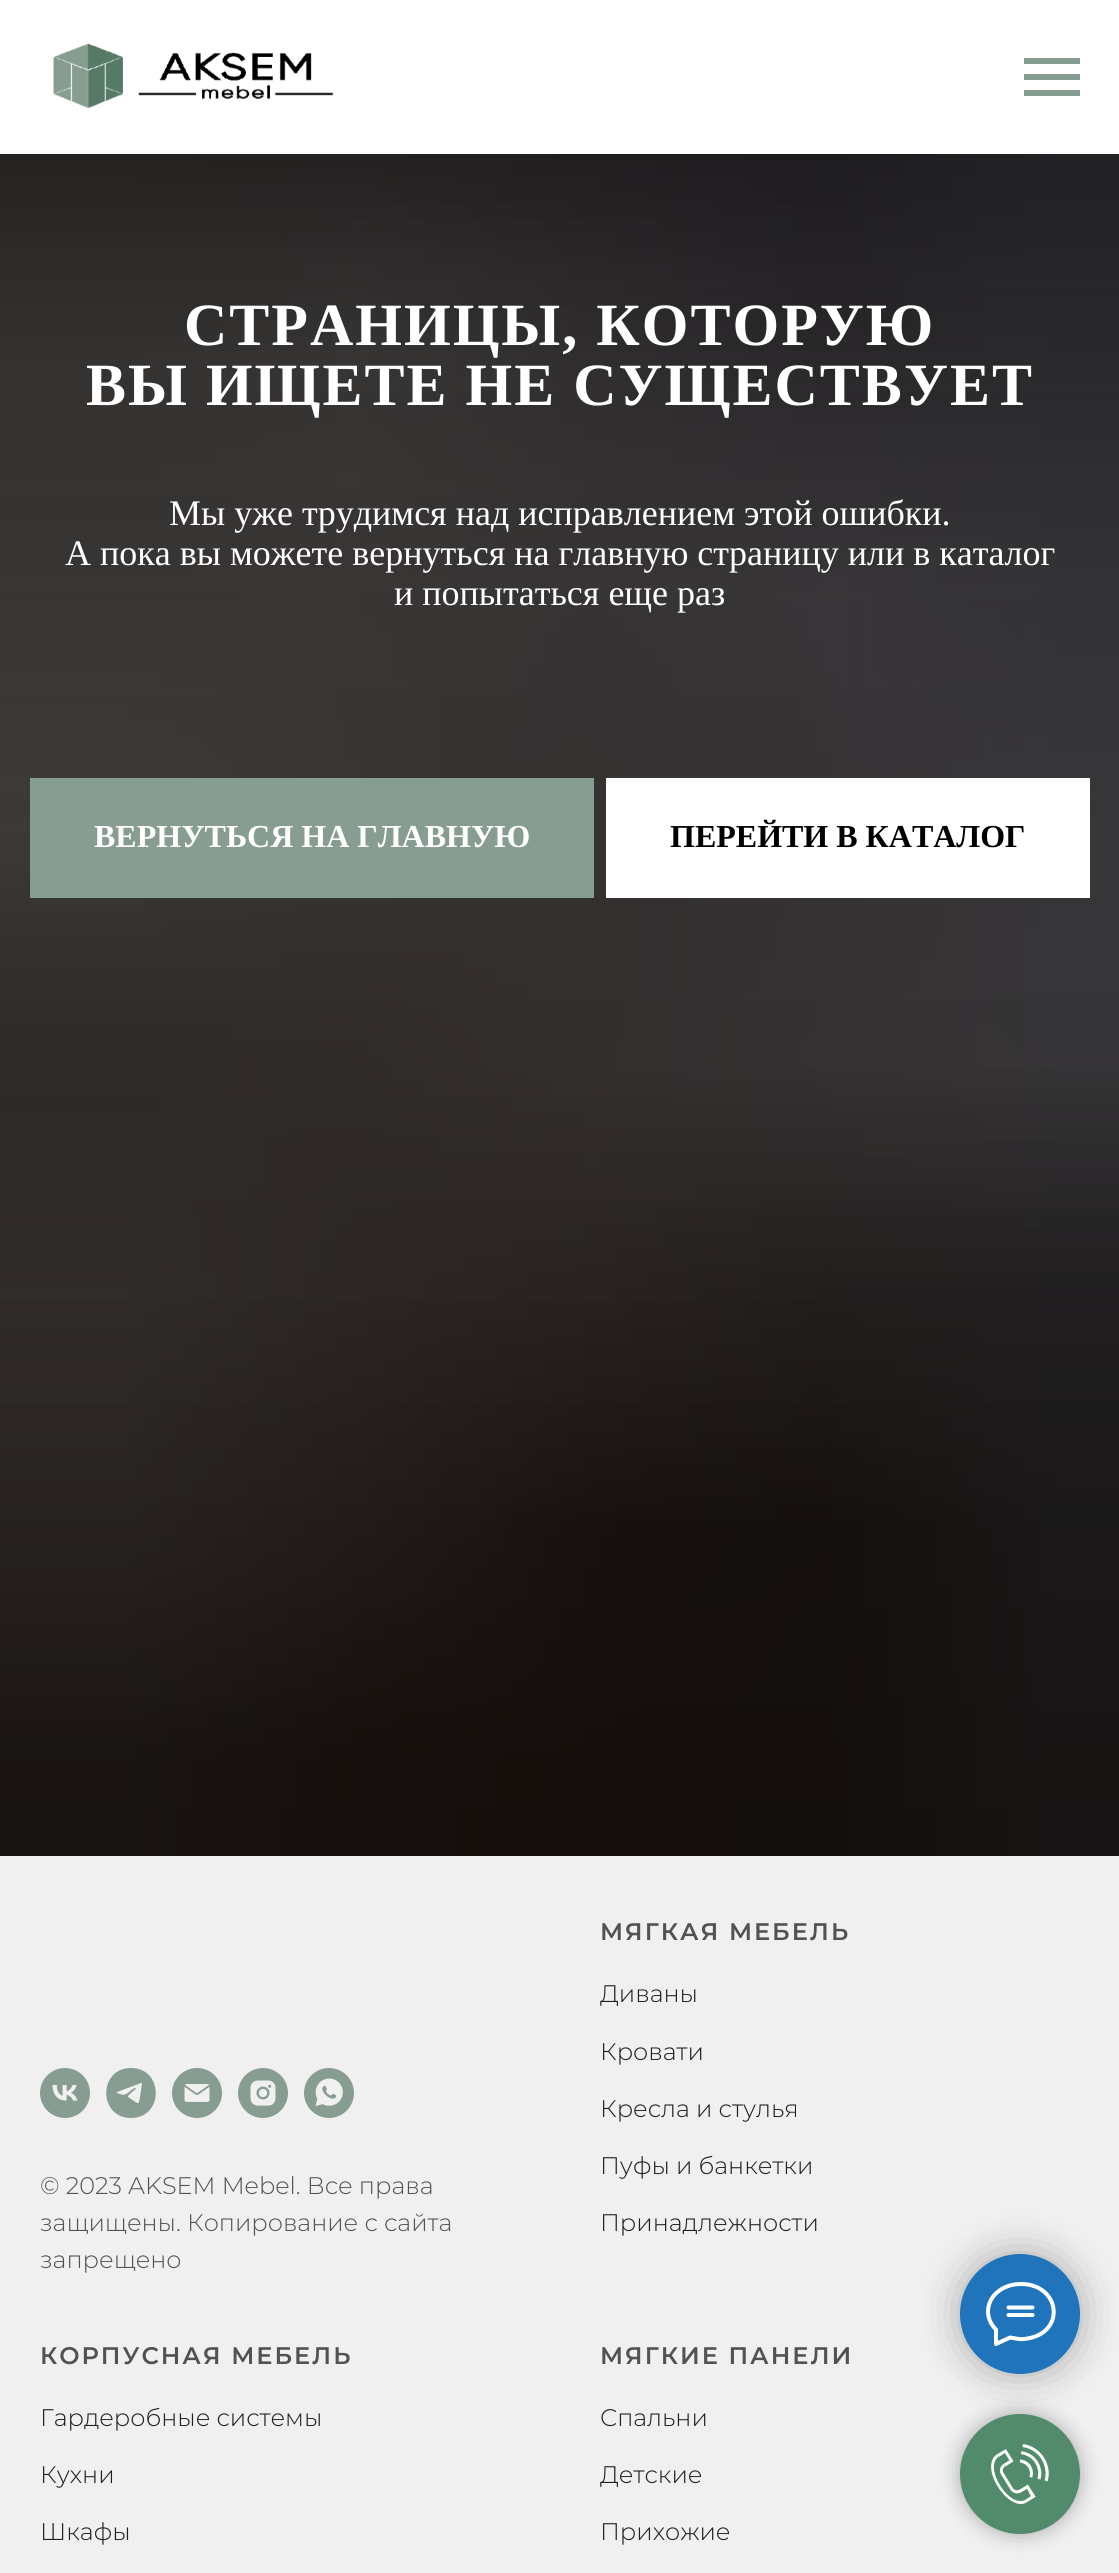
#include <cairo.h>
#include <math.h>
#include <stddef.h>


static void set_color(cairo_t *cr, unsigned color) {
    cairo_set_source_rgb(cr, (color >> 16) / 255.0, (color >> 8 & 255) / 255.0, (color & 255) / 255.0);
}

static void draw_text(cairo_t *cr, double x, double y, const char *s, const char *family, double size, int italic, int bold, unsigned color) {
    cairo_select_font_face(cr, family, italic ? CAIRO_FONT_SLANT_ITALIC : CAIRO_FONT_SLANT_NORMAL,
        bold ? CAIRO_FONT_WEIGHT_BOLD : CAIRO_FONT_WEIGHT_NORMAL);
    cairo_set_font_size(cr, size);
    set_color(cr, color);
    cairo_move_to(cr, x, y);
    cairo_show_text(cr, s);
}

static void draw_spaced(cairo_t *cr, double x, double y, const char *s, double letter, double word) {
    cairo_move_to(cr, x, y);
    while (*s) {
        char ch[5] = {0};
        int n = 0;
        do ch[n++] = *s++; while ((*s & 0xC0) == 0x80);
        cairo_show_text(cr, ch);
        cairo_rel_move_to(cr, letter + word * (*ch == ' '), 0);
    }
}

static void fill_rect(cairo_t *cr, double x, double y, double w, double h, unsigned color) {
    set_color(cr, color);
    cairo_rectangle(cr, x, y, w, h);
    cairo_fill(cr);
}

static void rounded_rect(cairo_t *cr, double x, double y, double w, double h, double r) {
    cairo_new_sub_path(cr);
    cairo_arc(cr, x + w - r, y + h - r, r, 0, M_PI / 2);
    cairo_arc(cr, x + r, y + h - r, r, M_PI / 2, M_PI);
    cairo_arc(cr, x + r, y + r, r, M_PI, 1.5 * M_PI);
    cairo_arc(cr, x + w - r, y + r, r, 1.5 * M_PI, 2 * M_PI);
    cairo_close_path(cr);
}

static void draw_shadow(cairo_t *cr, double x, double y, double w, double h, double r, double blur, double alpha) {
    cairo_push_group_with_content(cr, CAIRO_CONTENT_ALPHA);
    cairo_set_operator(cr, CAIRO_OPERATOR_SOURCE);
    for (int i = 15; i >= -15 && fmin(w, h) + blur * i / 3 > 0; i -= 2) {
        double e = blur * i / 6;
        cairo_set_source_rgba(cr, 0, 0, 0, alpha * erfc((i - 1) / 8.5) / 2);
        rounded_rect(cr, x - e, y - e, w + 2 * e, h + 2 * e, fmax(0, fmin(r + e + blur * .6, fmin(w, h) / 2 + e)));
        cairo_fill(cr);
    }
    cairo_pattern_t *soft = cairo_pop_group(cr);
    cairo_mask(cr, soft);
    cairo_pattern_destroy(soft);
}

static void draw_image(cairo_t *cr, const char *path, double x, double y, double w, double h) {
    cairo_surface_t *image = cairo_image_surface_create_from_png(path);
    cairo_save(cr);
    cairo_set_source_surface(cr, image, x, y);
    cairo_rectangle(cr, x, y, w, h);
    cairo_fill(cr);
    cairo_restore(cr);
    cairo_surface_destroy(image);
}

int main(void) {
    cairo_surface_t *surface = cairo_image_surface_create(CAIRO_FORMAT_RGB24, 1119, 2573);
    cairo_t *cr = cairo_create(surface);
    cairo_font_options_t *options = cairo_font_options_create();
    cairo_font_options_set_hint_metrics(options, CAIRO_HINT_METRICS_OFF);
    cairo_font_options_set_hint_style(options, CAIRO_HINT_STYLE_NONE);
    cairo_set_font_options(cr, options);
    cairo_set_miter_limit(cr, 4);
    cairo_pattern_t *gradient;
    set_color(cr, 0xFFFFFF);
    cairo_paint(cr);
    draw_image(cr, "assets/img1.png", 53, 43, 281, 66);
    fill_rect(cr, 1024, 58, 56, 6, 0x879D91);
    fill_rect(cr, 1024, 74, 56, 6, 0x879D91);
    fill_rect(cr, 1024, 90, 56, 6, 0x879D91);
    draw_image(cr, "assets/img2.png", 0, 154, 1119, 1702);
    gradient = cairo_pattern_create_linear(560, -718, 560, 1856);
    cairo_pattern_add_color_stop_rgba(gradient, 0, 0, 0, 0, 0.7);
    cairo_pattern_add_color_stop_rgba(gradient, 1, 0, 0, 0, 0.8);
    cairo_set_source(cr, gradient);
    cairo_pattern_destroy(gradient);
    cairo_rectangle(cr, 0, 154, 1119, 1702);
    cairo_fill(cr);
    cairo_select_font_face(cr, "Liberation Serif", CAIRO_FONT_SLANT_NORMAL, CAIRO_FONT_WEIGHT_BOLD);
    cairo_set_font_size(cr, 60);
    set_color(cr, 0xFFFFFF);
    draw_spaced(cr, 184, 345, "СТРАНИЦЫ, КОТОРУЮ", 2, 0);
    draw_spaced(cr, 86, 405, "ВЫ ИЩЕТЕ НЕ СУЩЕСТВУЕТ", 2, 0);
    draw_text(cr, 169, 525, "Мы уже трудимся над исправлением этой ошибки.", "Liberation Serif", 36, 0, 0, 0xFFFFFF);
    draw_text(cr, 65, 565, "А пока вы можете вернуться на главную страницу или в каталог", "Liberation Serif", 36, 0, 0, 0xFFFFFF);
    draw_text(cr, 394, 605, "и попытаться еще раз", "Liberation Serif", 36, 0, 0, 0xFFFFFF);
    fill_rect(cr, 30, 778, 564, 120, 0x879D91);
    draw_text(cr, 94, 847, "ВЕРНУТЬСЯ НА ГЛАВНУЮ", "Liberation Serif", 32, 0, 1, 0xFFFFFF);
    fill_rect(cr, 606, 778, 484, 120, 0xFFFFFF);
    draw_text(cr, 670, 847, "ПЕРЕЙТИ В КАТАЛОГ", "Liberation Serif", 32, 0, 1, 0x000000);
    fill_rect(cr, 0, 1856, 1119, 717, 0xF0F0F0);
    draw_image(cr, "assets/img3.png", 40, 2068, 50, 50);
    set_color(cr, 0x879D91);
    cairo_set_fill_rule(cr, CAIRO_FILL_RULE_EVEN_ODD);
    cairo_new_path(cr);
    cairo_move_to(cr, 131, 2118);
    cairo_curve_to(cr, 164, 2118, 164, 2068, 131, 2068);
    cairo_curve_to(cr, 98, 2068, 98, 2118, 131, 2118);
    cairo_close_path(cr);
    cairo_move_to(cr, 142, 2084);
    cairo_curve_to(cr, 142, 2083, 142, 2083, 141, 2083);
    cairo_line_to(cr, 117, 2092);
    cairo_line_to(cr, 117, 2093);
    cairo_line_to(cr, 120, 2094);
    cairo_curve_to(cr, 127, 2097, 129, 2090, 135, 2088);
    cairo_line_to(cr, 136, 2088);
    cairo_curve_to(cr, 137, 2089, 127, 2095, 128, 2097);
    cairo_line_to(cr, 134, 2101);
    cairo_curve_to(cr, 139, 2105, 139, 2103, 140, 2097);
    cairo_close_path(cr);
    cairo_fill(cr);
    draw_image(cr, "assets/img4.png", 172, 2068, 50, 50);
    draw_image(cr, "assets/img5.png", 238, 2068, 50, 50);
    draw_image(cr, "assets/img6.png", 304, 2068, 50, 50);
    draw_text(cr, 40, 2194, "© 2023 AKSEM Mebel. Все права", "Montserrat Light", 24, 0, 0, 0x525252);
    draw_text(cr, 40, 2231, "защищены. Копирование с сайта", "Montserrat Light", 24, 0, 0, 0x525252);
    draw_text(cr, 40, 2268, "запрещено", "Montserrat Light", 24, 0, 0, 0x525252);
    cairo_select_font_face(cr, "Montserrat SemiBold", CAIRO_FONT_SLANT_NORMAL, CAIRO_FONT_WEIGHT_NORMAL);
    draw_spaced(cr, 600, 1940, "МЯГКАЯ МЕБЕЛЬ", 2, 0);
    draw_text(cr, 600, 2002, "Диваны", "Montserrat Light", 24, 0, 0, 0x1E1E1E);
    draw_text(cr, 600, 2060, "Кровати", "Montserrat Light", 24, 0, 0, 0x1E1E1E);
    draw_text(cr, 600, 2117, "Кресла и стулья", "Montserrat Light", 24, 0, 0, 0x1E1E1E);
    draw_text(cr, 600, 2174, "Пуфы и банкетки", "Montserrat Light", 24, 0, 0, 0x1E1E1E);
    draw_text(cr, 600, 2231, "Принадлежности", "Montserrat Light", 24, 0, 0, 0x1E1E1E);
    cairo_select_font_face(cr, "Montserrat SemiBold", CAIRO_FONT_SLANT_NORMAL, CAIRO_FONT_WEIGHT_NORMAL);
    set_color(cr, 0x525252);
    draw_spaced(cr, 40, 2364, "КОРПУСНАЯ МЕБЕЛЬ", 2, 0);
    draw_text(cr, 40, 2426, "Гардеробные системы", "Montserrat Light", 24, 0, 0, 0x1E1E1E);
    draw_text(cr, 40, 2483, "Кухни", "Montserrat Light", 24, 0, 0, 0x1E1E1E);
    draw_text(cr, 40, 2540, "Шкафы", "Montserrat Light", 24, 0, 0, 0x1E1E1E);
    cairo_select_font_face(cr, "Montserrat SemiBold", CAIRO_FONT_SLANT_NORMAL, CAIRO_FONT_WEIGHT_NORMAL);
    set_color(cr, 0x525252);
    draw_spaced(cr, 600, 2364, "МЯГКИЕ ПАНЕЛИ", 2, 0);
    draw_text(cr, 600, 2426, "Спальни", "Montserrat Light", 24, 0, 0, 0x1E1E1E);
    draw_text(cr, 600, 2483, "Детские", "Montserrat Light", 24, 0, 0, 0x1E1E1E);
    draw_text(cr, 600, 2540, "Прихожие", "Montserrat Light", 24, 0, 0, 0x1E1E1E);
    set_color(cr, 0x000000);
    draw_shadow(cr, 960, 2414, 120, 120, 60, 10, 0.3);
    set_color(cr, 0x518B6C);
    cairo_arc(cr, 1020, 2474, 60, 0, 2 * M_PI);
    cairo_fill(cr);
    set_color(cr, 0x000000);
    draw_shadow(cr, 960, 2254, 120, 120, 60, 20, 0.3);
    set_color(cr, 0x1F74BB);
    cairo_arc(cr, 1020, 2314, 60, 0, 2 * M_PI);
    cairo_fill(cr);
    cairo_new_path(cr);
    cairo_move_to(cr, 1008.5, 2307.5);
    cairo_line_to(cr, 1032.5, 2307.5);
    cairo_move_to(cr, 1008.5, 2315);
    cairo_line_to(cr, 1032.5, 2315);
    cairo_move_to(cr, 995.5, 2329);
    cairo_curve_to(cr, 985, 2318.5, 985.5, 2302, 997.5, 2292);
    cairo_curve_to(cr, 1004, 2286.5, 1012.5, 2284, 1021, 2284);
    cairo_curve_to(cr, 1060, 2284, 1066.5, 2332, 1027.5, 2338.5);
    cairo_curve_to(cr, 1019, 2340, 1017.5, 2338.5, 1010, 2337.5);
    cairo_line_to(cr, 996, 2344);
    cairo_line_to(cr, 996, 2329.5);
    cairo_close_path(cr);
    set_color(cr, 0xFFFFFF);
    cairo_set_line_width(cr, 4);
    cairo_set_line_cap(cr, CAIRO_LINE_CAP_ROUND);
    cairo_set_line_join(cr, CAIRO_LINE_JOIN_ROUND);
    cairo_stroke(cr);
    draw_image(cr, "assets/img7.png", 991, 2444, 58, 60);
    cairo_surface_write_to_png(surface, "output.png");
    cairo_font_options_destroy(options);
    cairo_destroy(cr);
    cairo_surface_destroy(surface);
    return 0;
}
